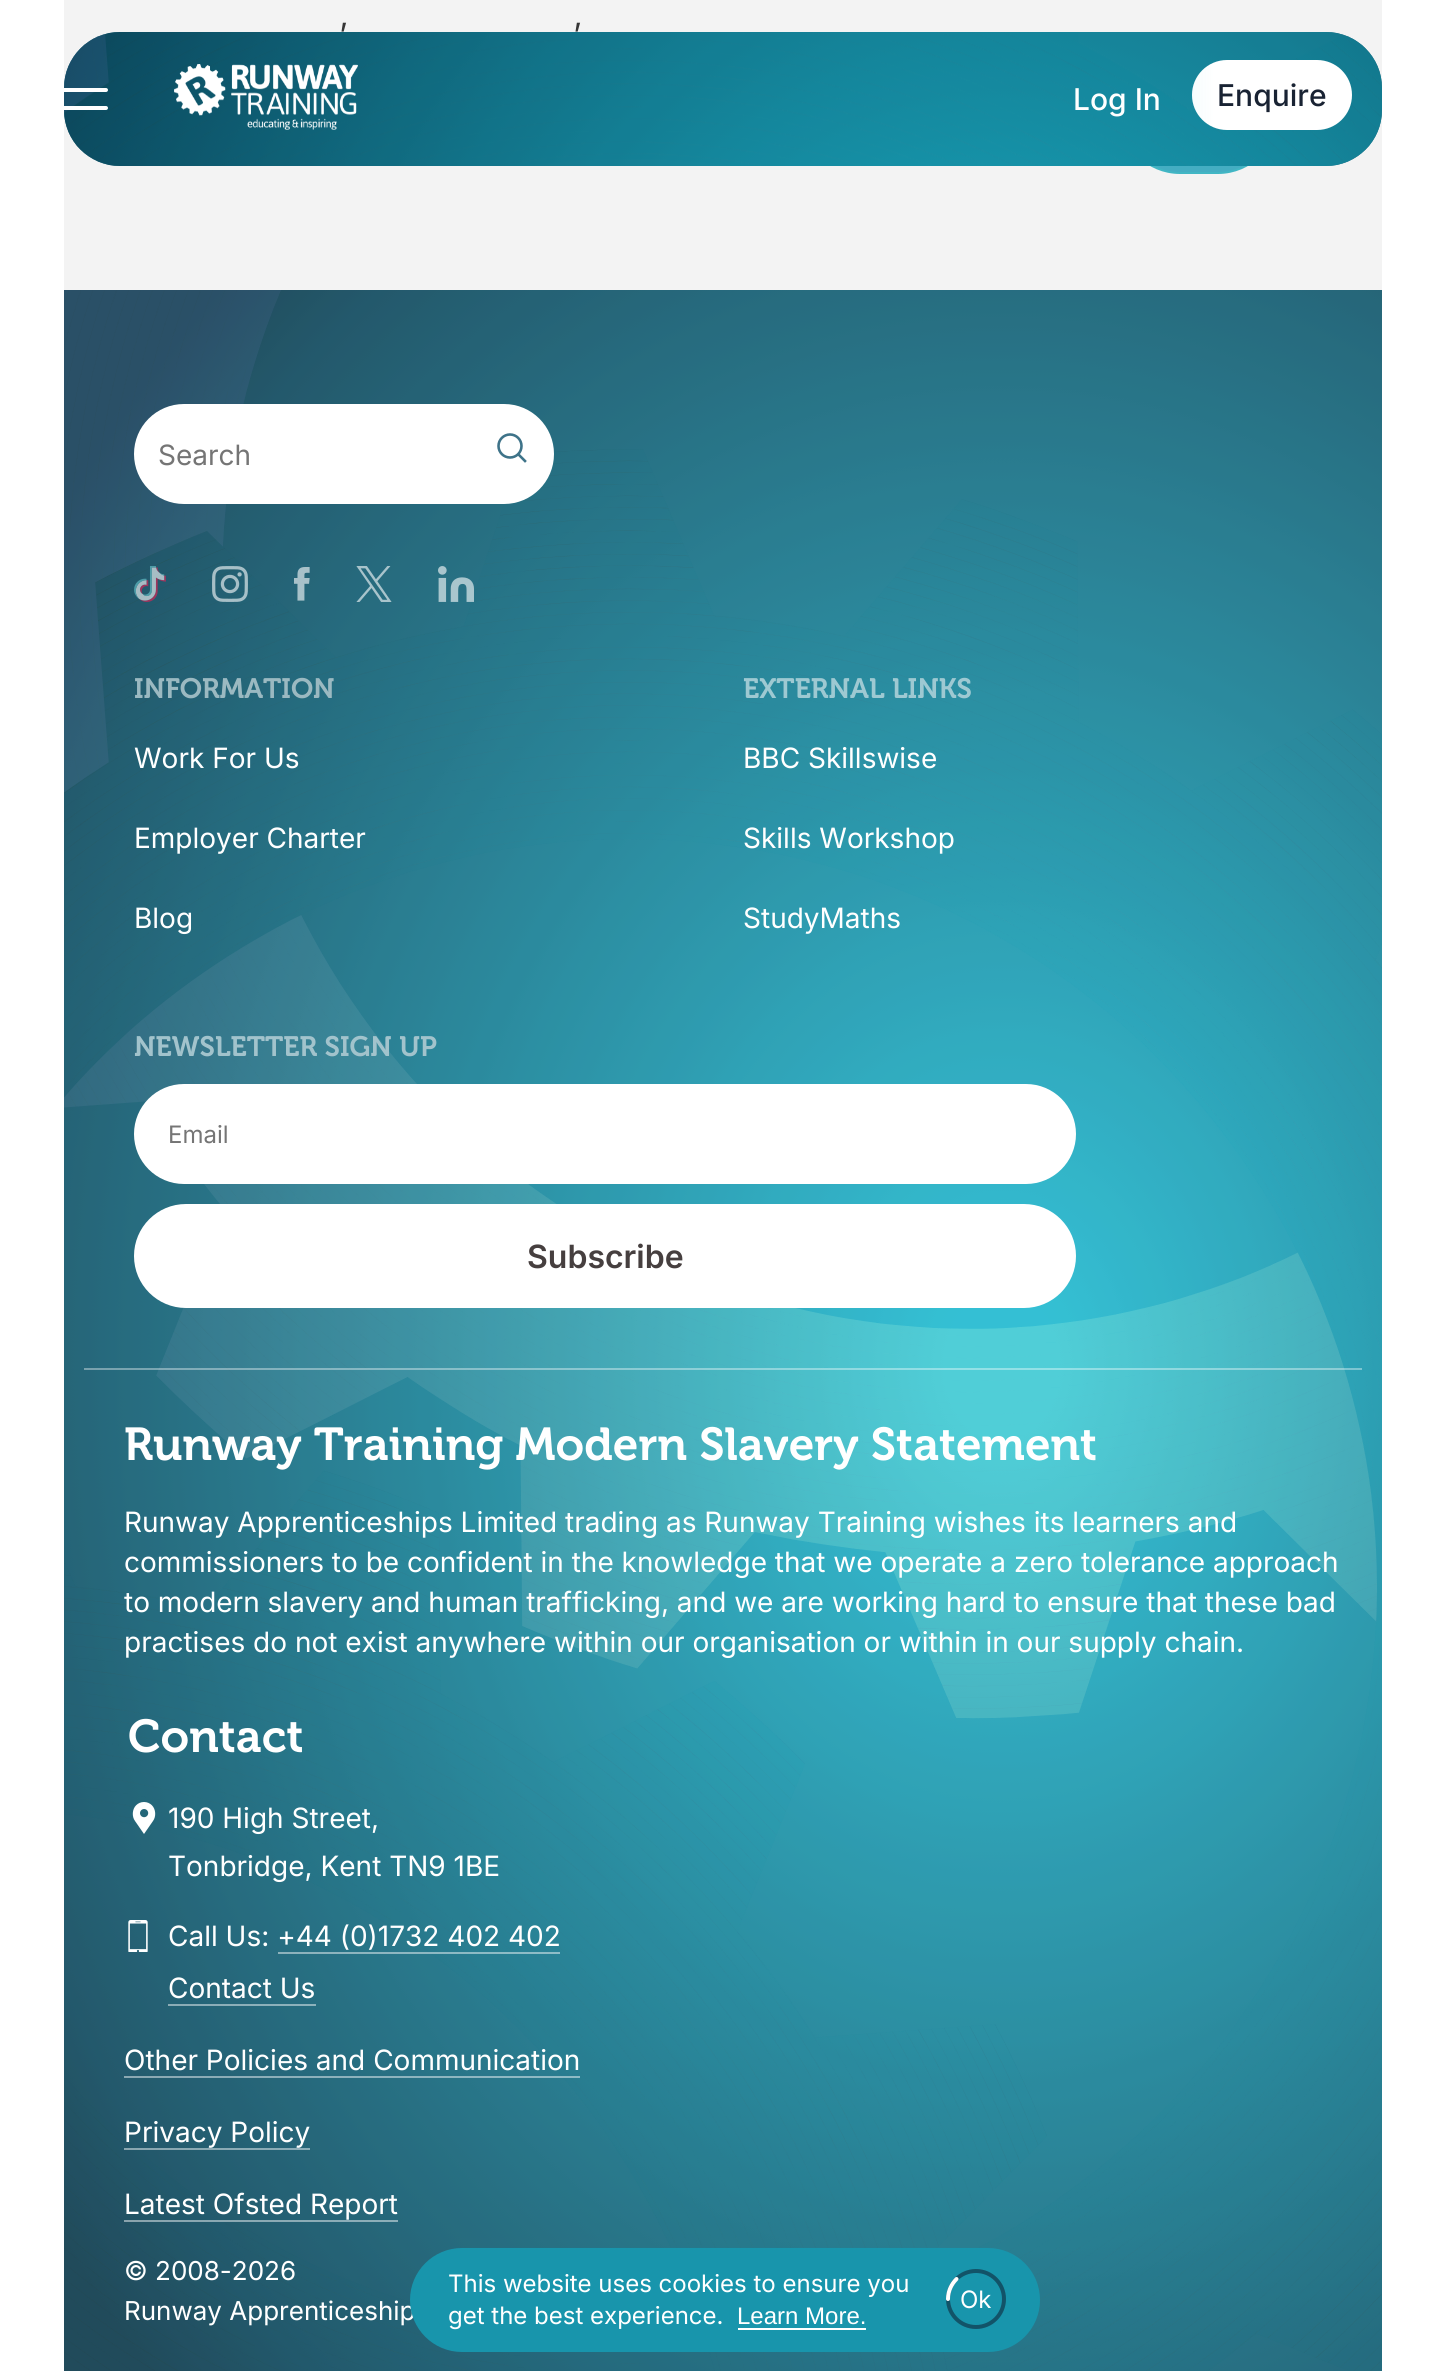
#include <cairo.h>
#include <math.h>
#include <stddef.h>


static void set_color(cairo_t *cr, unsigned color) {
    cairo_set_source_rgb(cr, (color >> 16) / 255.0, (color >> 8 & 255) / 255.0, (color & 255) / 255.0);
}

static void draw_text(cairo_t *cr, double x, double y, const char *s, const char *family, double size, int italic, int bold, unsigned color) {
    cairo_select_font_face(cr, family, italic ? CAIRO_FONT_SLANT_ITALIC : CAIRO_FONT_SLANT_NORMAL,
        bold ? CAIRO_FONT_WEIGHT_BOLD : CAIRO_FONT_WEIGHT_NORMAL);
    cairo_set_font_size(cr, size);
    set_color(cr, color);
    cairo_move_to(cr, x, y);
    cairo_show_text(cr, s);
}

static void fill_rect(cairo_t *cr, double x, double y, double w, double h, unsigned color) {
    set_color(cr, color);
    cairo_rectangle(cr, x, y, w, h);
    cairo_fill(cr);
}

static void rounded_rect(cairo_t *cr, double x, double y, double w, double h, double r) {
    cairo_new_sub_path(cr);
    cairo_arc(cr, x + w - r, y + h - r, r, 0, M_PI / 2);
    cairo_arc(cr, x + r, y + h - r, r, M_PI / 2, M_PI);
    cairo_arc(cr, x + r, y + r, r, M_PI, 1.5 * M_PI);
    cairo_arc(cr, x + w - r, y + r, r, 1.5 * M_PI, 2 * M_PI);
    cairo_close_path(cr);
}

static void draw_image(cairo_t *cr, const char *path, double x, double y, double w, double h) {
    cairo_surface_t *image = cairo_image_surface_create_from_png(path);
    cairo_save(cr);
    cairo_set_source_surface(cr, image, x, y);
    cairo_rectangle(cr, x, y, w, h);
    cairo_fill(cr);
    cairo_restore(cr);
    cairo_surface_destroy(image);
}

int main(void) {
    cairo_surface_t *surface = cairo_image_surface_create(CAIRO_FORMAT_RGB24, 1446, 2371);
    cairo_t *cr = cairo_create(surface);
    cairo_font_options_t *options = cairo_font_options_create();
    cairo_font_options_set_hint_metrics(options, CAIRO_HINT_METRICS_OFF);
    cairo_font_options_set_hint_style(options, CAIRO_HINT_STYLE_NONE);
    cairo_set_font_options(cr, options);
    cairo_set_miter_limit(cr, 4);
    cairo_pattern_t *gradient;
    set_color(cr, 0xFFFFFF);
    cairo_paint(cr);
    fill_rect(cr, 64, 0, 1318, 290, 0xF3F3F3);
    draw_text(cr, 339, 46, "’", "Inter", 32, 0, 0, 0x363636);
    draw_text(cr, 573, 46, "’", "Inter", 32, 0, 0, 0x363636);
    set_color(cr, 0x44ADC2);
    rounded_rect(cr, 1121, 55, 156, 118, 59);
    cairo_fill_preserve(cr);
    set_color(cr, 0x41B6C4);
    cairo_stroke(cr);
    set_color(cr, 0x38788C);
    rounded_rect(cr, 64, 32, 1318, 134, 56);
    cairo_fill(cr);
    draw_image(cr, "assets/img1.png", 64, 32, 1318, 134);
    set_color(cr, 0xFFFFFF);
    rounded_rect(cr, 60, 88, 48, 4, 2);
    cairo_fill(cr);
    rounded_rect(cr, 60, 106, 48, 4, 2);
    cairo_fill(cr);
    draw_image(cr, "assets/img2.png", 174, 64, 184, 66);
    draw_text(cr, 1073, 110, "Log In", "Inter Medium", 30, 0, 0, 0xFFFFFF);
    rounded_rect(cr, 1192, 60, 160, 70, 35);
    cairo_fill(cr);
    cairo_save(cr);
    rounded_rect(cr, 1192, 60, 160, 70, 35);
    cairo_clip(cr);
    gradient = cairo_pattern_create_linear(1055, 95, 1217, 95);
    cairo_pattern_add_color_stop_rgba(gradient, 0, 0.761, 0.925, 0.961, 0);
    cairo_pattern_add_color_stop_rgba(gradient, 0.5, 0.761, 0.925, 0.961, 0.43);
    cairo_pattern_add_color_stop_rgba(gradient, 1, 0.761, 0.925, 0.961, 0);
    cairo_set_source(cr, gradient);
    cairo_pattern_destroy(gradient);
    cairo_rectangle(cr, 1192, 64, 21, 62);
    cairo_fill(cr);
    cairo_restore(cr);
    draw_text(cr, 1217, 106, "Enquire", "Inter Medium", 30, 0, 0, 0x192333);
    draw_image(cr, "assets/img3.png", 64, 290, 1318, 2081);
    set_color(cr, 0xFFFFFF);
    rounded_rect(cr, 134, 404, 420, 100, 50);
    cairo_fill(cr);
    draw_text(cr, 158, 465, "Search", "Inter", 28, 0, 0, 0x757575);
    cairo_new_path(cr);
    cairo_arc(cr, 510, 446, 11.5, 0, 2 * M_PI);
    set_color(cr, 0x3E7389);
    cairo_set_line_width(cr, 2.6);
    cairo_stroke(cr);
    cairo_new_path(cr);
    cairo_move_to(cr, 518.5, 454.5);
    cairo_line_to(cr, 525, 461);
    cairo_set_line_cap(cr, CAIRO_LINE_CAP_SQUARE);
    cairo_stroke(cr);
    draw_image(cr, "assets/img4.png", 134, 566, 32, 36);
    draw_image(cr, "assets/img5.png", 212, 566, 36, 36);
    draw_image(cr, "assets/img6.png", 294, 567, 16, 34);
    draw_image(cr, "assets/img7.png", 356, 566, 36, 36);
    draw_image(cr, "assets/img8.png", 438, 566, 36, 36);
    draw_text(cr, 134, 698, "INFORMATION", "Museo", 28, 0, 1, 0x9BB9C1);
    draw_text(cr, 134, 768, "Work For Us", "Inter", 28, 0, 0, 0xFFFFFF);
    draw_text(cr, 134, 848, "Employer Charter", "Inter", 28, 0, 0, 0xFFFFFF);
    draw_text(cr, 134, 928, "Blog", "Inter", 28, 0, 0, 0xFFFFFF);
    draw_text(cr, 743, 698, "EXTERNAL LINKS", "Museo", 28, 0, 1, 0x9EC9D2);
    draw_text(cr, 743, 768, "BBC Skillswise", "Inter", 28, 0, 0, 0xFFFFFF);
    draw_text(cr, 743, 848, "Skills Workshop", "Inter", 28, 0, 0, 0xFFFFFF);
    draw_text(cr, 743, 928, "StudyMaths", "Inter", 28, 0, 0, 0xFFFFFF);
    draw_text(cr, 134, 1056, "NEWSLETTER SIGN UP", "Museo", 28, 0, 1, 0xA2C3CC);
    set_color(cr, 0xFFFFFF);
    rounded_rect(cr, 134, 1084, 942, 100, 50);
    cairo_fill(cr);
    draw_text(cr, 168, 1143, "Email", "Inter", 24, 0, 0, 0x757575);
    set_color(cr, 0xFFFFFF);
    rounded_rect(cr, 134, 1204, 942, 104, 52);
    cairo_fill(cr);
    draw_text(cr, 527, 1268, "Subscribe", "Inter SemiBold", 32, 0, 0, 0x463F3F);
    cairo_set_source_rgba(cr, 1, 1, 1, 0.38);
    cairo_rectangle(cr, 84, 1368, 1278, 2);
    cairo_fill(cr);
    draw_text(cr, 124, 1460, "Runway Training Modern Slavery Statement", "Museo", 46, 0, 1, 0xFFFFFF);
    draw_text(cr, 124, 1532, "Runway Apprenticeships Limited trading as Runway Training wishes its learners and", "Inter", 28, 0, 0, 0xFFFFFF);
    draw_text(cr, 124, 1572, "commissioners to be confident in the knowledge that we operate a zero tolerance approach", "Inter", 28, 0, 0, 0xFFFFFF);
    draw_text(cr, 124, 1612, "to modern slavery and human trafficking, and we are working hard to ensure that these bad", "Inter", 28, 0, 0, 0xFFFFFF);
    draw_text(cr, 124, 1652, "practises do not exist anywhere within our organisation or within in our supply chain.", "Inter", 28, 0, 0, 0xFFFFFF);
    draw_text(cr, 128, 1752, "Contact", "Museo", 46, 0, 1, 0xFFFFFF);
    draw_image(cr, "assets/img9.png", 132, 1802, 24, 32);
    draw_text(cr, 168, 1828, "190 High Street,", "Inter", 28, 0, 0, 0xFFFFFF);
    draw_text(cr, 168, 1876, "Tonbridge, Kent TN9 1BE", "Inter", 28, 0, 0, 0xFFFFFF);
    draw_image(cr, "assets/img10.png", 128, 1920, 20, 32);
    draw_text(cr, 168, 1946, "Call Us: +44 (0)1732 402 402", "Inter", 28, 0, 0, 0xFFFFFF);
    cairo_set_source_rgba(cr, 1, 1, 1, 0.47);
    cairo_rectangle(cr, 278, 1952, 282, 2);
    cairo_fill(cr);
    draw_text(cr, 168, 1998, "Contact Us", "Inter", 28, 0, 0, 0xFFFFFF);
    cairo_set_source_rgba(cr, 1, 1, 1, 0.47);
    cairo_rectangle(cr, 168, 2004, 148, 2);
    cairo_fill(cr);
    draw_text(cr, 124, 2070, "Other Policies and Communication", "Inter", 28, 0, 0, 0xFFFFFF);
    cairo_set_source_rgba(cr, 1, 1, 1, 0.47);
    cairo_rectangle(cr, 124, 2076, 456, 2);
    cairo_fill(cr);
    draw_text(cr, 124, 2142, "Privacy Policy", "Inter", 28, 0, 0, 0xFFFFFF);
    cairo_set_source_rgba(cr, 1, 1, 1, 0.47);
    cairo_rectangle(cr, 124, 2148, 186, 2);
    cairo_fill(cr);
    draw_text(cr, 124, 2214, "Latest Ofsted Report", "Inter", 28, 0, 0, 0xFFFFFF);
    cairo_set_source_rgba(cr, 1, 1, 1, 0.47);
    cairo_rectangle(cr, 124, 2220, 274, 2);
    cairo_fill(cr);
    draw_text(cr, 124, 2280, "© 2008-2026", "Inter", 26, 0, 0, 0xFFFFFF);
    draw_text(cr, 124, 2320, "Runway Apprenticeship", "Inter", 26, 0, 0, 0xFFFFFF);
    set_color(cr, 0x1895AC);
    rounded_rect(cr, 410, 2248, 630, 104, 52);
    cairo_fill(cr);
    draw_text(cr, 448, 2292, "This website uses cookies to ensure you", "Inter", 24, 0, 0, 0xFFFFFF);
    draw_text(cr, 448, 2324, "get the best experience.", "Inter", 24, 0, 0, 0xFFFFFF);
    draw_text(cr, 737, 2324, "Learn More.", "Liberation Sans", 24, 0, 0, 0xFFFFFF);
    fill_rect(cr, 738, 2328, 128, 2, 0xFFFFFF);
    draw_text(cr, 960, 2308, "Ok", "Inter", 24, 0, 0, 0xFFFFFF);
    cairo_new_path(cr);
    cairo_move_to(cr, 948, 2299);
    cairo_curve_to(cr, 948, 2283.5, 960.5, 2271, 976, 2271);
    cairo_curve_to(cr, 991.5, 2271, 1004, 2283.5, 1004, 2299);
    cairo_curve_to(cr, 1004, 2314.5, 991.5, 2327, 976, 2327);
    cairo_curve_to(cr, 960.5, 2327, 948, 2314.5, 948, 2299);
    cairo_close_path(cr);
    set_color(cr, 0x125368);
    cairo_set_line_width(cr, 4);
    cairo_set_line_cap(cr, CAIRO_LINE_CAP_ROUND);
    cairo_stroke(cr);
    cairo_new_path(cr);
    cairo_move_to(cr, 948, 2299);
    cairo_curve_to(cr, 948, 2291, 951.5, 2284, 956.5, 2279);
    set_color(cr, 0xFFFFFF);
    cairo_stroke(cr);
    cairo_surface_write_to_png(surface, "output.png");
    cairo_font_options_destroy(options);
    cairo_destroy(cr);
    cairo_surface_destroy(surface);
    return 0;
}
